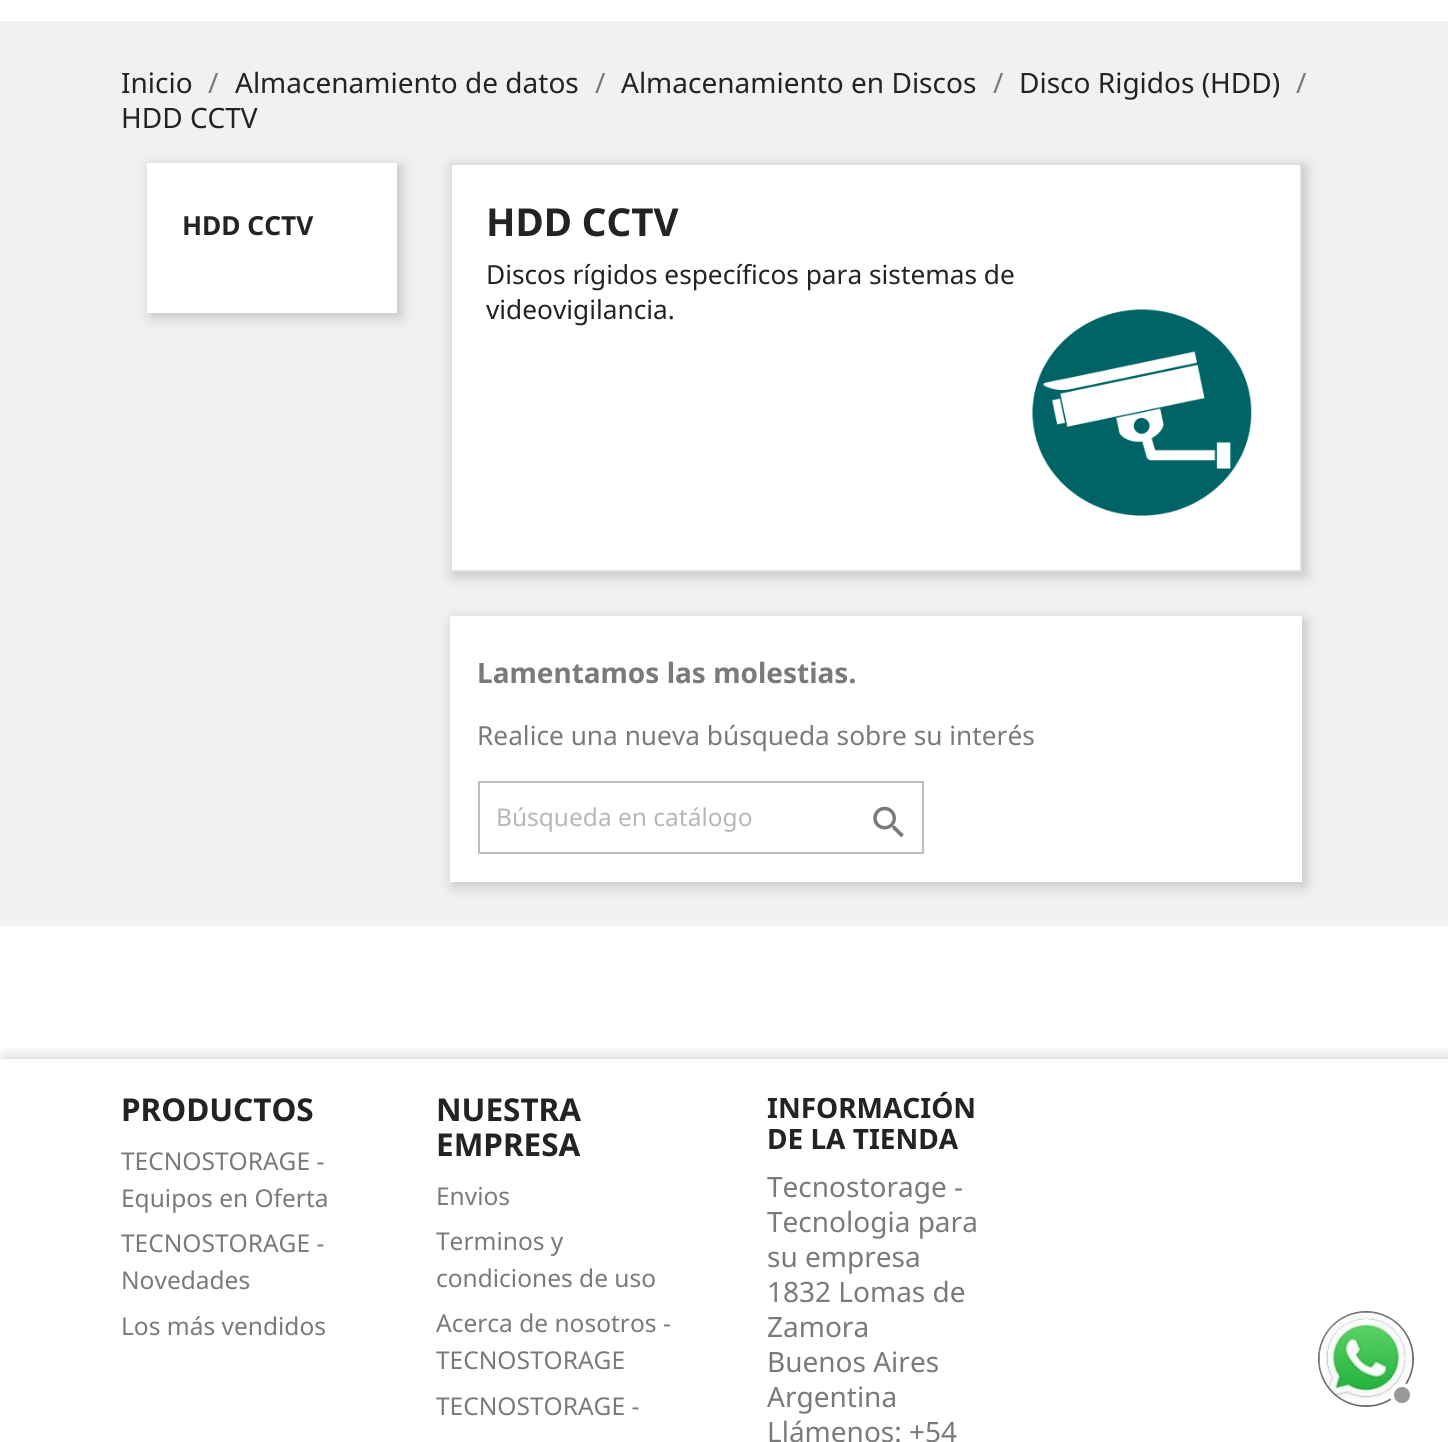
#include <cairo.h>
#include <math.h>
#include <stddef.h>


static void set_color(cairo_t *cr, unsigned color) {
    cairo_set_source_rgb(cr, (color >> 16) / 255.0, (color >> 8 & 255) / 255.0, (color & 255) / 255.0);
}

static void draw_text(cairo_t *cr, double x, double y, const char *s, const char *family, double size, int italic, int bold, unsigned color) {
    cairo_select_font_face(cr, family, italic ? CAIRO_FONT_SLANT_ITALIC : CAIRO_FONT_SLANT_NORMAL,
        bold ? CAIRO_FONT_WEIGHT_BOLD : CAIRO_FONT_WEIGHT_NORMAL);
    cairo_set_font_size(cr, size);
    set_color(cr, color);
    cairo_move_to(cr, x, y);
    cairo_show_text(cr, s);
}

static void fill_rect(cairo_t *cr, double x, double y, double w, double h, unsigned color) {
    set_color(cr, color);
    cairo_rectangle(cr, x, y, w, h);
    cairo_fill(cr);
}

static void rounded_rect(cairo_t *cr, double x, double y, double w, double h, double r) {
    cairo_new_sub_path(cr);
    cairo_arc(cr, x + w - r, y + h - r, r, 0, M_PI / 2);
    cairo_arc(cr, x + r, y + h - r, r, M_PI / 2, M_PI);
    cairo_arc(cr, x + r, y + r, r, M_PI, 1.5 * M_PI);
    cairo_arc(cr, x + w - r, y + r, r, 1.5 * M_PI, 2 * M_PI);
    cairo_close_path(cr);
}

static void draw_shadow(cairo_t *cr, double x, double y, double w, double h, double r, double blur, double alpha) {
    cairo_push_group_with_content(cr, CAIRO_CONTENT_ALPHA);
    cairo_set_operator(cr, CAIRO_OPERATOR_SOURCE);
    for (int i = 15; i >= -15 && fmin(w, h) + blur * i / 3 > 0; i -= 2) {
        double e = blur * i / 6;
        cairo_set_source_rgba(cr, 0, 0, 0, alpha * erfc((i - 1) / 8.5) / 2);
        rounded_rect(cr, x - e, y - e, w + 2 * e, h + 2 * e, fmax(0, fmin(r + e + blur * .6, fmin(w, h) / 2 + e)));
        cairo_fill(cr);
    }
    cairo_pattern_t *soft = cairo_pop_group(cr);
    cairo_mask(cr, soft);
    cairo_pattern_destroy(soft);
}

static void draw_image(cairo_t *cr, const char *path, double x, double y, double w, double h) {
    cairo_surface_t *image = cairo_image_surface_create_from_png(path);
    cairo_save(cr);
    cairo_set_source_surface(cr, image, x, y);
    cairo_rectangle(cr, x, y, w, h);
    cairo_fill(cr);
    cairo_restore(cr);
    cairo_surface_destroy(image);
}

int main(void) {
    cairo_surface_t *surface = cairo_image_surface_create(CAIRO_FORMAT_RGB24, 1448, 1442);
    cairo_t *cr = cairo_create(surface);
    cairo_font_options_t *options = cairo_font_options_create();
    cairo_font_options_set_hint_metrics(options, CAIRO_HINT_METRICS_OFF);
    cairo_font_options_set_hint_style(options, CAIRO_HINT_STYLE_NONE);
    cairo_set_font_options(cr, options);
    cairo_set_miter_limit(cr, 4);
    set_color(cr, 0xFFFFFF);
    cairo_paint(cr);
    fill_rect(cr, 0, 21, 1448, 905, 0xF1F1F1);
    draw_text(cr, 121, 93, "Inicio", "Noto Sans", 28, 0, 0, 0x232323);
    draw_text(cr, 208, 93, "/", "Noto Sans", 28, 0, 0, 0x7A7A7A);
    draw_text(cr, 235, 93, "Almacenamiento de datos", "Noto Sans", 28, 0, 0, 0x232323);
    draw_text(cr, 595, 93, "/", "Noto Sans", 28, 0, 0, 0x7A7A7A);
    draw_text(cr, 621, 93, "Almacenamiento en Discos", "Noto Sans", 28, 0, 0, 0x232323);
    draw_text(cr, 993, 93, "/", "Noto Sans", 28, 0, 0, 0x7A7A7A);
    draw_text(cr, 1019, 93, "Disco Rigidos (HDD)", "Noto Sans", 28, 0, 0, 0x232323);
    draw_text(cr, 1296, 93, "/", "Noto Sans", 28, 0, 0, 0x7A7A7A);
    draw_text(cr, 121, 128, "HDD CCTV", "Noto Sans", 28, 0, 0, 0x232323);
    set_color(cr, 0x000000);
    draw_shadow(cr, 151, 166, 250, 151, 0, 7, 0.2);
    fill_rect(cr, 147, 163, 250, 150, 0xFFFFFF);
    draw_text(cr, 182, 235, "HDD CCTV", "Noto Sans", 26.25, 0, 1, 0x232323);
    set_color(cr, 0x000000);
    draw_shadow(cr, 453, 166, 853, 410, 0, 7, 0.2);
    set_color(cr, 0xFFFFFF);
    cairo_rectangle(cr, 451, 164, 850, 407);
    cairo_fill_preserve(cr);
    set_color(cr, 0xDFDFDF);
    cairo_stroke(cr);
    draw_text(cr, 486, 236, "HDD CCTV", "Noto Sans", 38.5, 0, 1, 0x232323);
    draw_text(cr, 486, 284, "Discos rígidos específicos para sistemas de", "Noto Sans", 26.25, 0, 0, 0x232323);
    draw_text(cr, 486, 319, "videovigilancia.", "Noto Sans", 26.25, 0, 0, 0x232323);
    draw_image(cr, "assets/img1.png", 1032, 309, 220, 207);
    set_color(cr, 0x000000);
    draw_shadow(cr, 453, 620, 853, 266, 0, 7, 0.2);
    fill_rect(cr, 450, 616, 852, 266, 0xFFFFFF);
    draw_text(cr, 477, 683, "Lamentamos las molestias.", "Noto Sans", 28, 0, 1, 0x7A7A7A);
    draw_text(cr, 477, 745, "Realice una nueva búsqueda sobre su interés", "Noto Sans", 26.25, 0, 0, 0x7A7A7A);
    cairo_rectangle(cr, 479, 782, 444, 71);
    set_color(cr, 0xBFBFBF);
    cairo_stroke(cr);
    draw_text(cr, 496, 826, "Búsqueda en catálogo", "Noto Sans", 24.5, 0, 0, 0xB7B7B7);
    draw_image(cr, "assets/img2.png", 873, 806, 31, 32);
    cairo_save(cr);
    cairo_rectangle(cr, 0, 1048, 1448, 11);
    cairo_clip(cr);
    set_color(cr, 0x000000);
    draw_shadow(cr, 4, 1062, 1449, 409, 0, 9.5, 0.3);
    cairo_restore(cr);
    draw_text(cr, 121, 1121, "PRODUCTOS", "Noto Sans", 31.5, 0, 1, 0x232323);
    draw_text(cr, 121, 1170, "TECNOSTORAGE -", "Noto Sans", 24.5, 0, 0, 0x7A7A7A);
    draw_text(cr, 121, 1207, "Equipos en Oferta", "Noto Sans", 24.5, 0, 0, 0x7A7A7A);
    draw_text(cr, 121, 1252, "TECNOSTORAGE -", "Noto Sans", 24.5, 0, 0, 0x7A7A7A);
    draw_text(cr, 121, 1289, "Novedades", "Noto Sans", 24.5, 0, 0, 0x7A7A7A);
    draw_text(cr, 121, 1335, "Los más vendidos", "Noto Sans", 24.5, 0, 0, 0x7A7A7A);
    draw_text(cr, 436, 1121, "NUESTRA", "Noto Sans", 31.5, 0, 1, 0x232323);
    draw_text(cr, 436, 1156, "EMPRESA", "Noto Sans", 31.5, 0, 1, 0x232323);
    draw_text(cr, 436, 1205, "Envios", "Noto Sans", 24.5, 0, 0, 0x7A7A7A);
    draw_text(cr, 436, 1250, "Terminos y", "Noto Sans", 24.5, 0, 0, 0x7A7A7A);
    draw_text(cr, 436, 1287, "condiciones de uso", "Noto Sans", 24.5, 0, 0, 0x7A7A7A);
    draw_text(cr, 436, 1332, "Acerca de nosotros -", "Noto Sans", 24.5, 0, 0, 0x7A7A7A);
    draw_text(cr, 436, 1369, "TECNOSTORAGE", "Noto Sans", 24.5, 0, 0, 0x7A7A7A);
    draw_text(cr, 436, 1415, "TECNOSTORAGE -", "Noto Sans", 24.5, 0, 0, 0x7A7A7A);
    draw_text(cr, 767, 1118, "INFORMACIÓN", "Noto Sans", 28, 0, 1, 0x232323);
    draw_text(cr, 767, 1149, "DE LA TIENDA", "Noto Sans", 28, 0, 1, 0x232323);
    draw_text(cr, 767, 1197, "Tecnostorage -", "Noto Sans", 28, 0, 0, 0x7A7A7A);
    draw_text(cr, 767, 1232, "Tecnologia para", "Noto Sans", 28, 0, 0, 0x7A7A7A);
    draw_text(cr, 767, 1267, "su empresa", "Noto Sans", 28, 0, 0, 0x7A7A7A);
    draw_text(cr, 767, 1302, "1832 Lomas de", "Noto Sans", 28, 0, 0, 0x7A7A7A);
    draw_text(cr, 767, 1337, "Zamora", "Noto Sans", 28, 0, 0, 0x7A7A7A);
    draw_text(cr, 767, 1372, "Buenos Aires", "Noto Sans", 28, 0, 0, 0x7A7A7A);
    draw_text(cr, 767, 1407, "Argentina", "Noto Sans", 28, 0, 0, 0x7A7A7A);
    draw_text(cr, 767, 1442, "Llámenos: +54", "Noto Sans", 28, 0, 0, 0x7A7A7A);
    cairo_new_path(cr);
    cairo_arc(cr, 1366, 1359, 47, 0, 2 * M_PI);
    set_color(cr, 0x666666);
    cairo_stroke(cr);
    draw_image(cr, "assets/img3.png", 1319, 1312, 94, 94);
    set_color(cr, 0x999999);
    cairo_arc(cr, 1402, 1395, 10, 0, 2 * M_PI);
    cairo_fill_preserve(cr);
    set_color(cr, 0xFFFFFF);
    cairo_set_line_width(cr, 4);
    cairo_stroke(cr);
    cairo_surface_write_to_png(surface, "output.png");
    cairo_font_options_destroy(options);
    cairo_destroy(cr);
    cairo_surface_destroy(surface);
    return 0;
}
